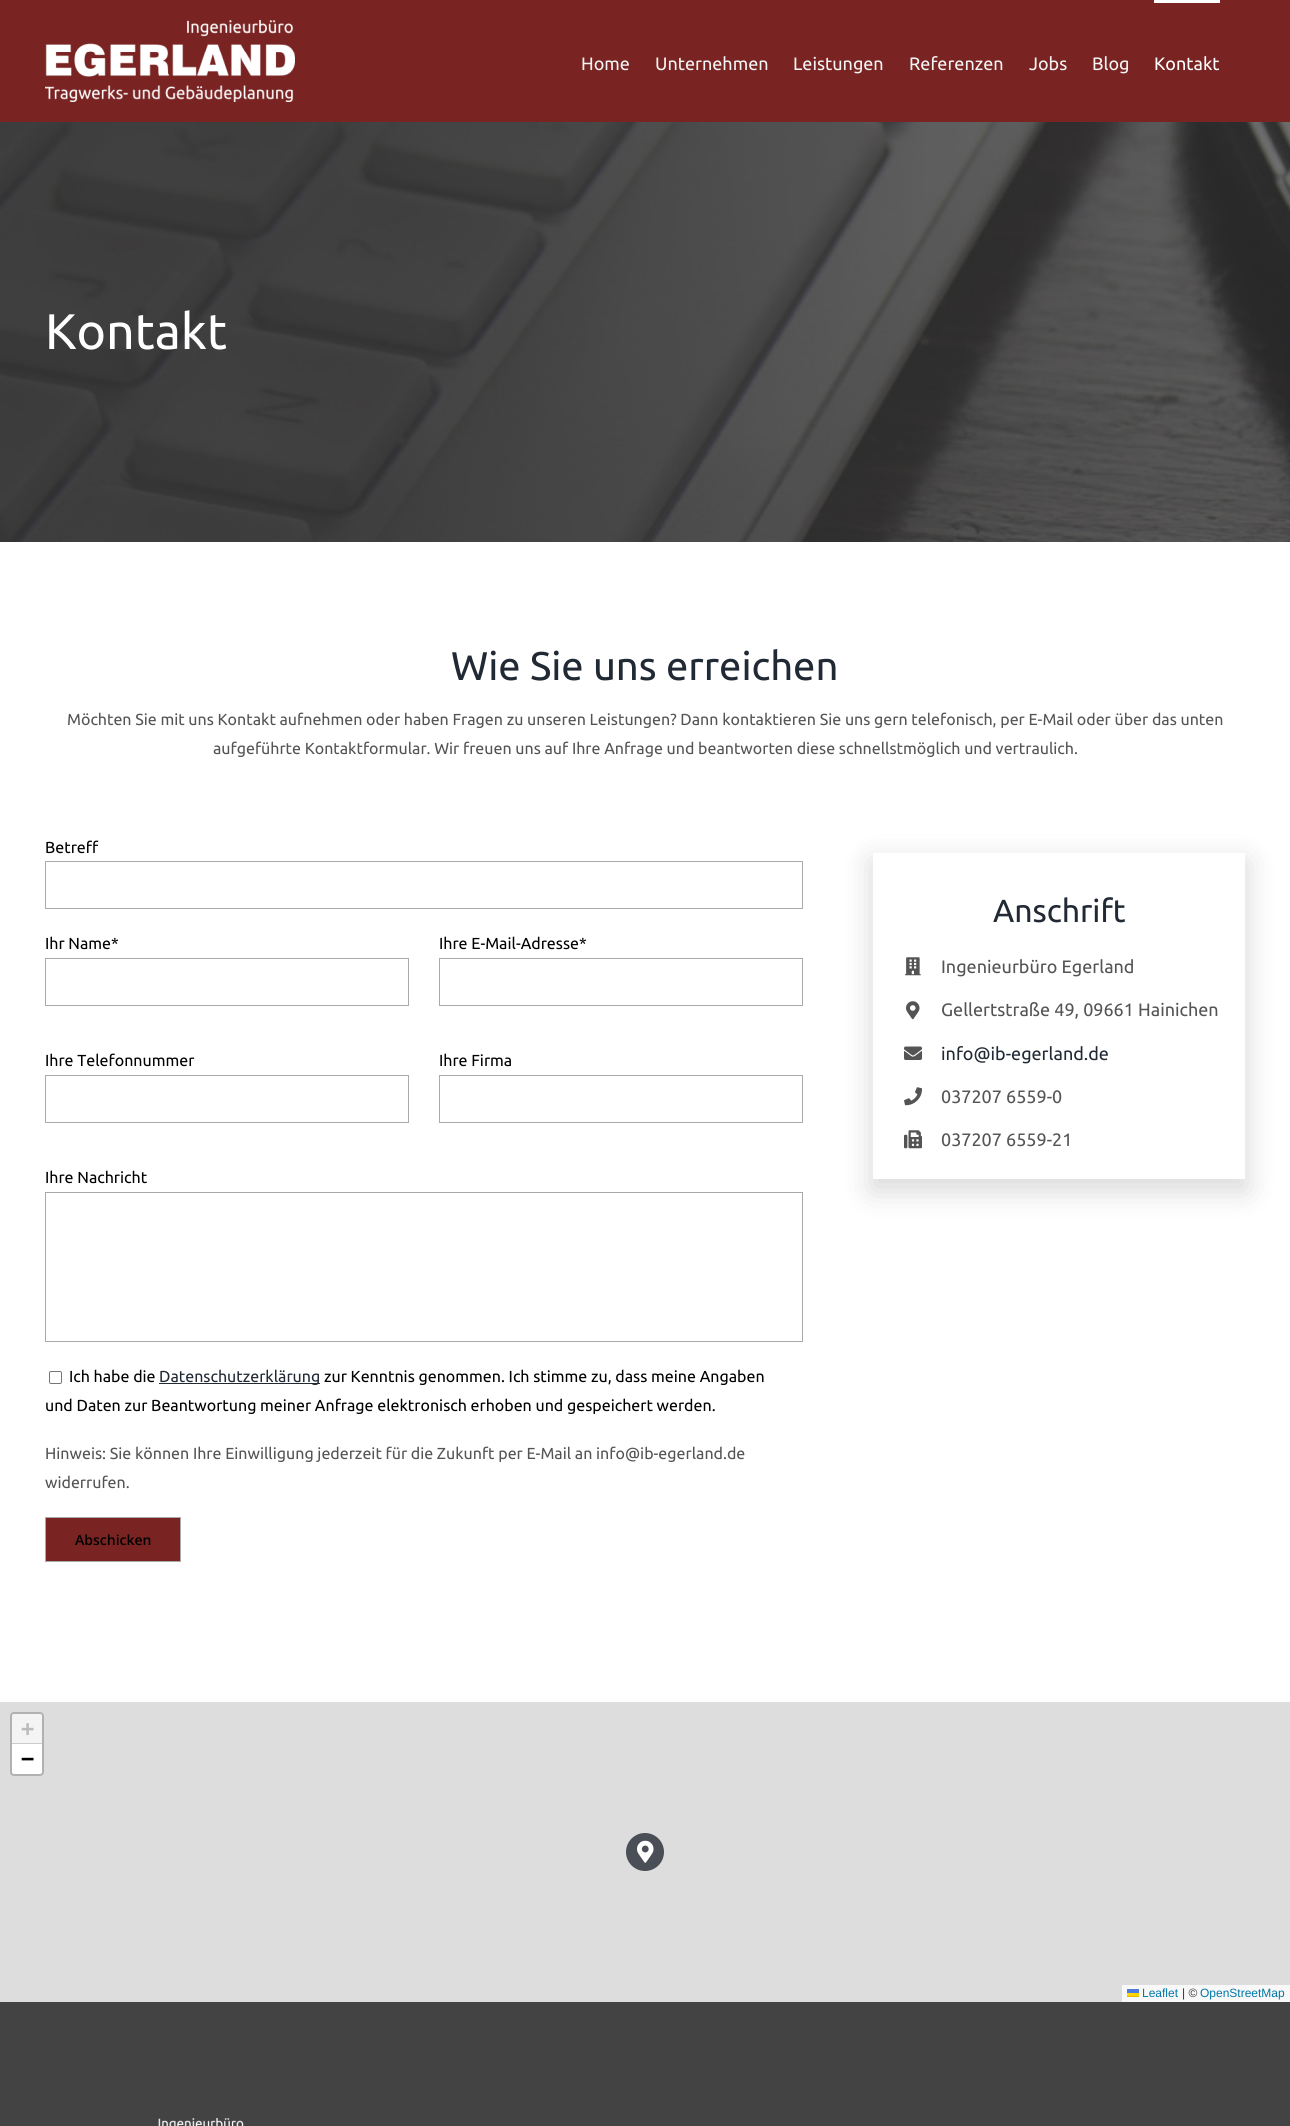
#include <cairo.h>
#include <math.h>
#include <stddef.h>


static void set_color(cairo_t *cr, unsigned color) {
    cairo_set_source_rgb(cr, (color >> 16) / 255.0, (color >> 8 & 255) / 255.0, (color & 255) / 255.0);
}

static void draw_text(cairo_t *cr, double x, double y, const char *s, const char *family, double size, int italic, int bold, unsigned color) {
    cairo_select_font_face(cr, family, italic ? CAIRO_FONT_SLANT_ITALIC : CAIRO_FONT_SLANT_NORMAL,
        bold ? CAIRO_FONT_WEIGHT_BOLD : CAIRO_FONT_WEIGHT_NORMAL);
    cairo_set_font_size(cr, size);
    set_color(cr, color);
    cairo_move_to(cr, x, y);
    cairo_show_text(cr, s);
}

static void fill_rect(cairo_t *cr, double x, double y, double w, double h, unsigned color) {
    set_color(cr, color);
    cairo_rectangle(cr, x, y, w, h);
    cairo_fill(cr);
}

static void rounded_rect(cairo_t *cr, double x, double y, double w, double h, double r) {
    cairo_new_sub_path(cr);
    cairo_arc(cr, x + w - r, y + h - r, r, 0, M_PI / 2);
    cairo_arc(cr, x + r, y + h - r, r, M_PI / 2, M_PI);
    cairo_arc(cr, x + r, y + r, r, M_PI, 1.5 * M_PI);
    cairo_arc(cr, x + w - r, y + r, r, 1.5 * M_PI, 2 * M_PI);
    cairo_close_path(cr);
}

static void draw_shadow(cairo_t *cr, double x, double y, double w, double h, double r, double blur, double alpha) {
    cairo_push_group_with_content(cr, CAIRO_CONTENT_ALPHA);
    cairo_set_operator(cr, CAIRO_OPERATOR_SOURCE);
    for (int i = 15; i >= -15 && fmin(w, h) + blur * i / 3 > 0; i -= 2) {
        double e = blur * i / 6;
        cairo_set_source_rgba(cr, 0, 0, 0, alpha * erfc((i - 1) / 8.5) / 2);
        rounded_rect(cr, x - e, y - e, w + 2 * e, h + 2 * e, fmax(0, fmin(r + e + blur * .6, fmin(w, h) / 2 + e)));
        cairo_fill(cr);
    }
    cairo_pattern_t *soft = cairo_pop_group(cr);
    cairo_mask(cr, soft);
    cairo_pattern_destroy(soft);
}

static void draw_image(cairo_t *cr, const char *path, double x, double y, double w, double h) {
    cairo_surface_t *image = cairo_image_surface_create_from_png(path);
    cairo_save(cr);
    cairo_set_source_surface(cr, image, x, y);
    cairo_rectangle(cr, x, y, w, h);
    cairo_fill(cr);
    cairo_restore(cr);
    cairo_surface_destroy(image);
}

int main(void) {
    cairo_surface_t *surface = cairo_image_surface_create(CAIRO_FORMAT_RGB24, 1290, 2126);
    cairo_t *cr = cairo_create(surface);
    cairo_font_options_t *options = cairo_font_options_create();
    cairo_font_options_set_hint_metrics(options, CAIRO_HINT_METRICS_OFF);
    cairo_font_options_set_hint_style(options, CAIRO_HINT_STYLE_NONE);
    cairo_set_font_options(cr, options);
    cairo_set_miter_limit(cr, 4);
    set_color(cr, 0xFFFFFF);
    cairo_paint(cr);
    fill_rect(cr, 0, 0, 1290, 122, 0x792423);
    draw_image(cr, "assets/img1.png", 45, 20, 250, 82);
    draw_text(cr, 581, 70, "Home", "Ubuntu", 18, 0, 0, 0xF4F4F4);
    draw_text(cr, 655, 70, "Unternehmen", "Ubuntu", 18, 0, 0, 0xF4F4F4);
    draw_text(cr, 793, 70, "Leistungen", "Ubuntu", 18, 0, 0, 0xF4F4F4);
    draw_text(cr, 909, 70, "Referenzen", "Ubuntu", 18, 0, 0, 0xF4F4F4);
    draw_text(cr, 1029, 70, "Jobs", "Ubuntu", 18, 0, 0, 0xF4F4F4);
    draw_text(cr, 1092, 70, "Blog", "Ubuntu", 18, 0, 0, 0xF4F4F4);
    fill_rect(cr, 1154, 0, 66, 3, 0xFFFFFF);
    draw_text(cr, 1154, 70, "Kontakt", "Ubuntu", 18, 0, 0, 0xFFFFFF);
    draw_image(cr, "assets/img2.png", 0, 122, 1290, 420);
    draw_text(cr, 45, 349, "Kontakt", "Ubuntu", 50, 0, 0, 0xFFFFFF);
    draw_text(cr, 451, 680, "Wie Sie uns erreichen", "Ubuntu", 40, 0, 0, 0x212934);
    draw_text(cr, 67, 725, "Möchten Sie mit uns Kontakt aufnehmen oder haben Fragen zu unseren Leistungen? Dann kontaktieren Sie uns gern telefonisch, per E-Mail oder über das unten", "Ubuntu", 16, 0, 0, 0x545454);
    draw_text(cr, 213, 754, "aufgeführte Kontaktformular. Wir freuen uns auf Ihre Anfrage und beantworten diese schnellstmöglich und vertraulich.", "Ubuntu", 16, 0, 0, 0x545454);
    draw_text(cr, 45, 853, "Betreff", "Ubuntu", 16, 0, 0, 0x000000);
    cairo_rectangle(cr, 45.5, 861.5, 757, 47);
    set_color(cr, 0xAAAAAA);
    cairo_set_line_width(cr, 1);
    cairo_stroke(cr);
    draw_text(cr, 45, 949, "Ihr Name*", "Ubuntu", 16, 0, 0, 0x000000);
    cairo_rectangle(cr, 45.5, 958.5, 363, 47);
    set_color(cr, 0xAAAAAA);
    cairo_stroke(cr);
    draw_text(cr, 439, 949, "Ihre E-Mail-Adresse*", "Ubuntu", 16, 0, 0, 0x000000);
    cairo_rectangle(cr, 439.5, 958.5, 363, 47);
    set_color(cr, 0xAAAAAA);
    cairo_stroke(cr);
    draw_text(cr, 45, 1066, "Ihre Telefonnummer", "Ubuntu", 16, 0, 0, 0x000000);
    cairo_rectangle(cr, 45.5, 1075.5, 363, 47);
    set_color(cr, 0xAAAAAA);
    cairo_stroke(cr);
    draw_text(cr, 439, 1066, "Ihre Firma", "Ubuntu", 16, 0, 0, 0x000000);
    cairo_rectangle(cr, 439.5, 1075.5, 363, 47);
    set_color(cr, 0xAAAAAA);
    cairo_stroke(cr);
    draw_text(cr, 45, 1183, "Ihre Nachricht", "Ubuntu", 16, 0, 0, 0x000000);
    cairo_rectangle(cr, 45.5, 1192.5, 757, 149);
    set_color(cr, 0xAAAAAA);
    cairo_stroke(cr);
    rounded_rect(cr, 49.5, 1371.5, 12, 12, 1.5);
    set_color(cr, 0x767676);
    cairo_stroke(cr);
    draw_text(cr, 69, 1382, "Ich habe die", "Ubuntu", 16, 0, 0, 0x000000);
    fill_rect(cr, 159, 1383, 161, 1, 0x212934);
    draw_text(cr, 159, 1382, "Datenschutzerklärung", "Ubuntu", 16, 0, 0, 0x212934);
    draw_text(cr, 324, 1382, "zur Kenntnis genommen. Ich stimme zu, dass meine Angaben", "Ubuntu", 16, 0, 0, 0x000000);
    draw_text(cr, 45, 1411, "und Daten zur Beantwortung meiner Anfrage elektronisch erhoben und gespeichert werden.", "Ubuntu", 16, 0, 0, 0x000000);
    draw_text(cr, 45, 1459, "Hinweis: Sie können Ihre Einwilligung jederzeit für die Zukunft per E-Mail an info@ib-egerland.de", "Ubuntu", 16, 0, 0, 0x545454);
    draw_text(cr, 45, 1488, "widerrufen.", "Ubuntu", 16, 0, 0, 0x545454);
    set_color(cr, 0x792423);
    cairo_rectangle(cr, 45.5, 1517.5, 135, 44);
    cairo_fill_preserve(cr);
    set_color(cr, 0xAAAAAA);
    cairo_stroke(cr);
    draw_text(cr, 75, 1545, "Abschicken", "Open Sans SemiBold", 14, 0, 0, 0x000000);
    cairo_save(cr);
    cairo_set_fill_rule(cr, CAIRO_FILL_RULE_EVEN_ODD);
    cairo_new_path(cr);
    cairo_move_to(cr, 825, 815);
    cairo_line_to(cr, 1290, 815);
    cairo_line_to(cr, 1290, 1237);
    cairo_line_to(cr, 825, 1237);
    cairo_close_path(cr);
    cairo_move_to(cr, 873, 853);
    cairo_line_to(cr, 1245, 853);
    cairo_line_to(cr, 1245, 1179);
    cairo_line_to(cr, 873, 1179);
    cairo_close_path(cr);
    cairo_clip(cr);
    set_color(cr, 0x000000);
    draw_shadow(cr, 871, 861, 376, 330, 0, 15, 0.15);
    cairo_restore(cr);
    draw_text(cr, 993, 922, "Anschrift", "Ubuntu", 32, 0, 0, 0x212934);
    draw_image(cr, "assets/img3.png", 905, 957, 16, 19);
    draw_text(cr, 941, 973, "Ingenieurbüro Egerland", "Ubuntu", 18, 0, 0, 0x545454);
    draw_image(cr, "assets/img4.png", 906, 1001, 14, 19);
    draw_text(cr, 941, 1016, "Gellertstraße 49, 09661 Hainichen", "Ubuntu", 18, 0, 0, 0x545454);
    draw_image(cr, "assets/img5.png", 904, 1046, 18, 14);
    draw_text(cr, 941, 1060, "info@ib-egerland.de", "Ubuntu", 18, 0, 0, 0x212934);
    draw_image(cr, "assets/img6.png", 904, 1087, 18, 19);
    draw_text(cr, 941, 1103, "037207 6559-0", "Ubuntu", 18, 0, 0, 0x545454);
    draw_image(cr, "assets/img7.png", 904, 1130, 18, 19);
    draw_text(cr, 941, 1146, "037207 6559-21", "Ubuntu", 18, 0, 0, 0x545454);
    fill_rect(cr, 0, 1702, 1290, 300, 0xDDDDDD);
    rounded_rect(cr, 11, 1713, 32, 62, 3);
    set_color(cr, 0xB1B1B1);
    cairo_set_line_width(cr, 2);
    cairo_stroke(cr);
    set_color(cr, 0xF4F4F4);
    cairo_new_path(cr);
    cairo_move_to(cr, 14, 1714);
    cairo_line_to(cr, 40, 1714);
    cairo_curve_to(cr, 41, 1714, 42, 1715, 42, 1716);
    cairo_line_to(cr, 42, 1744);
    cairo_line_to(cr, 12, 1744);
    cairo_line_to(cr, 12, 1716);
    cairo_curve_to(cr, 12, 1715, 13, 1714, 14, 1714);
    cairo_close_path(cr);
    cairo_fill(cr);
    fill_rect(cr, 12, 1743, 30, 1, 0xCCCCCC);
    draw_text(cr, 21, 1736, "+", "DejaVu Sans Mono", 22, 0, 1, 0xBBBBBB);
    set_color(cr, 0xFFFFFF);
    cairo_new_path(cr);
    cairo_move_to(cr, 12, 1744);
    cairo_line_to(cr, 42, 1744);
    cairo_line_to(cr, 42, 1772);
    cairo_curve_to(cr, 42, 1773, 41, 1774, 40, 1774);
    cairo_line_to(cr, 14, 1774);
    cairo_curve_to(cr, 13, 1774, 12, 1773, 12, 1772);
    cairo_close_path(cr);
    cairo_fill(cr);
    draw_text(cr, 21, 1766, "−", "DejaVu Sans Mono", 22, 0, 1, 0x000000);
    fill_rect(cr, 1122, 1985, 168, 17, 0xF8F8F8);
    draw_text(cr, 1142, 1997, "Leaflet", "Liberation Sans", 12, 0, 0, 0x0078A8);
    fill_rect(cr, 1127, 1989, 12, 4, 0x4C7BE1);
    fill_rect(cr, 1127, 1993, 12, 3, 0xFFD500);
    fill_rect(cr, 1127, 1996, 12, 1, 0xE0BC00);
    draw_text(cr, 1182, 1997, "| ©", "Liberation Sans", 12, 0, 0, 0x333333);
    draw_text(cr, 1200, 1997, "OpenStreetMap", "Liberation Sans", 12, 0, 0, 0x0078A8);
    set_color(cr, 0x4A4E57);
    cairo_new_path(cr);
    cairo_arc(cr, 645, 1852, 19, 0, 2 * M_PI);
    cairo_fill(cr);
    draw_image(cr, "assets/img8.png", 637, 1840, 17, 23);
    fill_rect(cr, 0, 2002, 1290, 124, 0x434343);
    draw_image(cr, "assets/img9.png", 158, 2118, 86, 8);
    cairo_surface_write_to_png(surface, "output.png");
    cairo_font_options_destroy(options);
    cairo_destroy(cr);
    cairo_surface_destroy(surface);
    return 0;
}
